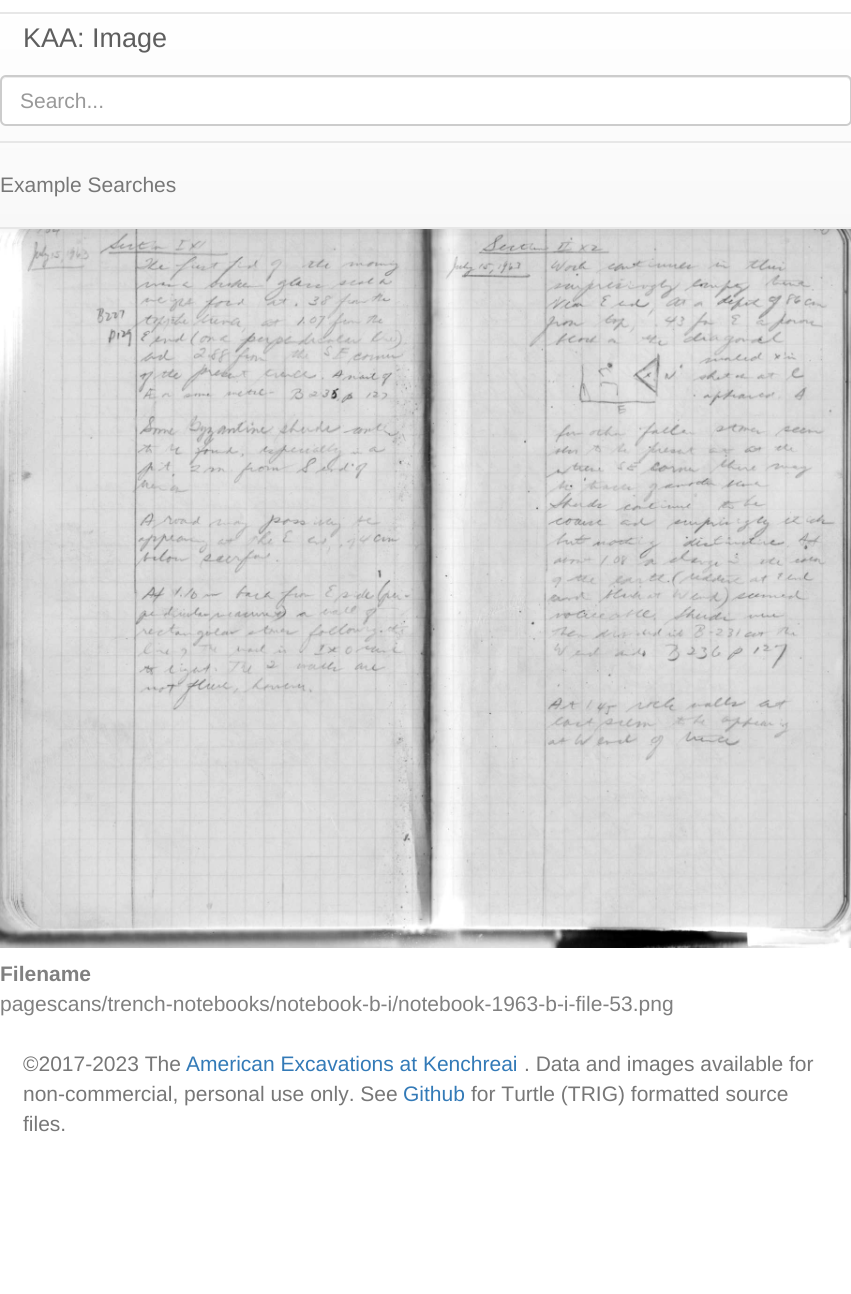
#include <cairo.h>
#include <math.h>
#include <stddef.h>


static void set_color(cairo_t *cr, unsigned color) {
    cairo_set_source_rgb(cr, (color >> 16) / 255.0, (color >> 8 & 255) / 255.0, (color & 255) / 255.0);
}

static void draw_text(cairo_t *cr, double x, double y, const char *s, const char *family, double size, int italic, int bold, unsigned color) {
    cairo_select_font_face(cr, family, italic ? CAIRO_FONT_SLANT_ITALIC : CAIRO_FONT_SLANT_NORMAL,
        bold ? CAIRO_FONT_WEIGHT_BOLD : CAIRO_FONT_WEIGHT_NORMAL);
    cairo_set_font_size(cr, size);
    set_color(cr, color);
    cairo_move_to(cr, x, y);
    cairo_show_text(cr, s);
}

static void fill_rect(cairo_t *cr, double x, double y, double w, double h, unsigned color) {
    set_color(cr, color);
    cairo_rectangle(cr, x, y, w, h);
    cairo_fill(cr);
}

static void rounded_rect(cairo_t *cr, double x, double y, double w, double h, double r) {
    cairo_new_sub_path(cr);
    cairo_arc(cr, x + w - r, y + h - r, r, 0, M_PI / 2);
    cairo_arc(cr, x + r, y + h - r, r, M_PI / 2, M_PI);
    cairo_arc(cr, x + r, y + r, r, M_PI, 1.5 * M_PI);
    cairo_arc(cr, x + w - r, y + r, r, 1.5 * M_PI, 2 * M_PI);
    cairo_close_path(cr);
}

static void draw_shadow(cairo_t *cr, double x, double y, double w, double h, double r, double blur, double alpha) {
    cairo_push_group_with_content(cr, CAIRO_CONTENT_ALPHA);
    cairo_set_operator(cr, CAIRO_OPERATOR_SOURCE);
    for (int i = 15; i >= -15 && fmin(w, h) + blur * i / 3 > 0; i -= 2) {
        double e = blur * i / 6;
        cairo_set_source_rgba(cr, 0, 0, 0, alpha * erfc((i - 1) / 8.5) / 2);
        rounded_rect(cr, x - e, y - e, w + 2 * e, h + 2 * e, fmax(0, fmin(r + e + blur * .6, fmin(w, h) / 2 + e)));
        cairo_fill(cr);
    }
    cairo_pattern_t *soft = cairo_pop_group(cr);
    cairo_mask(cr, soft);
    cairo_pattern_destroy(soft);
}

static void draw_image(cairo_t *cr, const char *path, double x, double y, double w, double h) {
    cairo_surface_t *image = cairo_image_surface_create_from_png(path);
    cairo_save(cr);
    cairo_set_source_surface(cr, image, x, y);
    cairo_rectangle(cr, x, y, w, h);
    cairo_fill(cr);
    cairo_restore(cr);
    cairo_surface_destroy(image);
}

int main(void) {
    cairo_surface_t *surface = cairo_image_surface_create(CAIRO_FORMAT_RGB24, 851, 1294);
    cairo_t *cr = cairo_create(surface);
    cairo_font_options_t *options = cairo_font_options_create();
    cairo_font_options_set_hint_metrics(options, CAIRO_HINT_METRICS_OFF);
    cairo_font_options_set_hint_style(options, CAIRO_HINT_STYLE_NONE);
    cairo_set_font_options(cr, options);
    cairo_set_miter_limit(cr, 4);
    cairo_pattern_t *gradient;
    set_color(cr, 0xFFFFFF);
    cairo_paint(cr);
    draw_image(cr, "assets/img1.png", 0, 229, 851, 719);
    set_color(cr, 0x000000);
    draw_shadow(cr, 0, 2, 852, 228, 0, 4, 0.07);
    gradient = cairo_pattern_create_linear(426, 0, 426, 227);
    cairo_pattern_add_color_stop_rgba(gradient, 0, 1, 1, 1, 1);
    cairo_pattern_add_color_stop_rgba(gradient, 1, 0.973, 0.973, 0.973, 1);
    cairo_set_source(cr, gradient);
    cairo_pattern_destroy(gradient);
    cairo_rectangle(cr, 0, 0, 851, 227);
    cairo_fill(cr);
    fill_rect(cr, 0, 227, 851, 2, 0xE7E7E7);
    draw_text(cr, 23, 47, "KAA: Image", "Liberation Sans", 27, 0, 0, 0x5E5E5E);
    fill_rect(cr, 0, 12, 851, 2, 0xE7E7E7);
    fill_rect(cr, 0, 141, 851, 2, 0xE7E7E7);
    set_color(cr, 0xFFFFFF);
    rounded_rect(cr, 0, 75, 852, 51, 6);
    cairo_fill(cr);
    set_color(cr, 0xECECEC);
    cairo_new_path(cr);
    cairo_move_to(cr, 6, 78);
    cairo_line_to(cr, 846, 78);
    cairo_curve_to(cr, 848, 78, 850, 80, 850, 82);
    cairo_line_to(cr, 850, 123);
    cairo_curve_to(cr, 851, 122, 851, 121, 851, 120);
    cairo_line_to(cr, 851, 82);
    cairo_curve_to(cr, 851, 79, 849, 77, 846, 77);
    cairo_line_to(cr, 7, 77);
    cairo_curve_to(cr, 4, 77, 2, 79, 2, 82);
    cairo_curve_to(cr, 2, 80, 4, 78, 6, 78);
    cairo_close_path(cr);
    cairo_fill(cr);
    rounded_rect(cr, 1, 76, 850, 49, 5);
    set_color(cr, 0xCCCCCC);
    cairo_stroke(cr);
    draw_text(cr, 20, 108, "Search...", "Liberation Sans", 21, 0, 0, 0x999999);
    draw_text(cr, 0, 192, "Example Searches", "Liberation Sans", 21, 0, 0, 0x777777);
    draw_text(cr, 0, 981, "Filename", "Liberation Sans", 21, 0, 1, 0x808080);
    draw_text(cr, 0, 1011, "pagescans/trench-notebooks/notebook-b-i/notebook-1963-b-i-file-53.png", "Liberation Sans", 21, 0, 0, 0x808080);
    draw_text(cr, 23, 1071, "©2017-2023 The", "Liberation Sans", 21, 0, 0, 0x777777);
    draw_text(cr, 186, 1071, "American Excavations at Kenchreai", "Liberation Sans", 21, 0, 0, 0x337AB7);
    draw_text(cr, 524, 1071, ". Data and images available for", "Liberation Sans", 21, 0, 0, 0x777777);
    draw_text(cr, 23, 1101, "non-commercial, personal use only. See", "Liberation Sans", 21, 0, 0, 0x777777);
    draw_text(cr, 403, 1101, "Github", "Liberation Sans", 21, 0, 0, 0x337AB7);
    draw_text(cr, 471, 1101, "for Turtle (TRIG) formatted source", "Liberation Sans", 21, 0, 0, 0x777777);
    draw_text(cr, 23, 1131, "files.", "Liberation Sans", 21, 0, 0, 0x777777);
    cairo_surface_write_to_png(surface, "output.png");
    cairo_font_options_destroy(options);
    cairo_destroy(cr);
    cairo_surface_destroy(surface);
    return 0;
}
